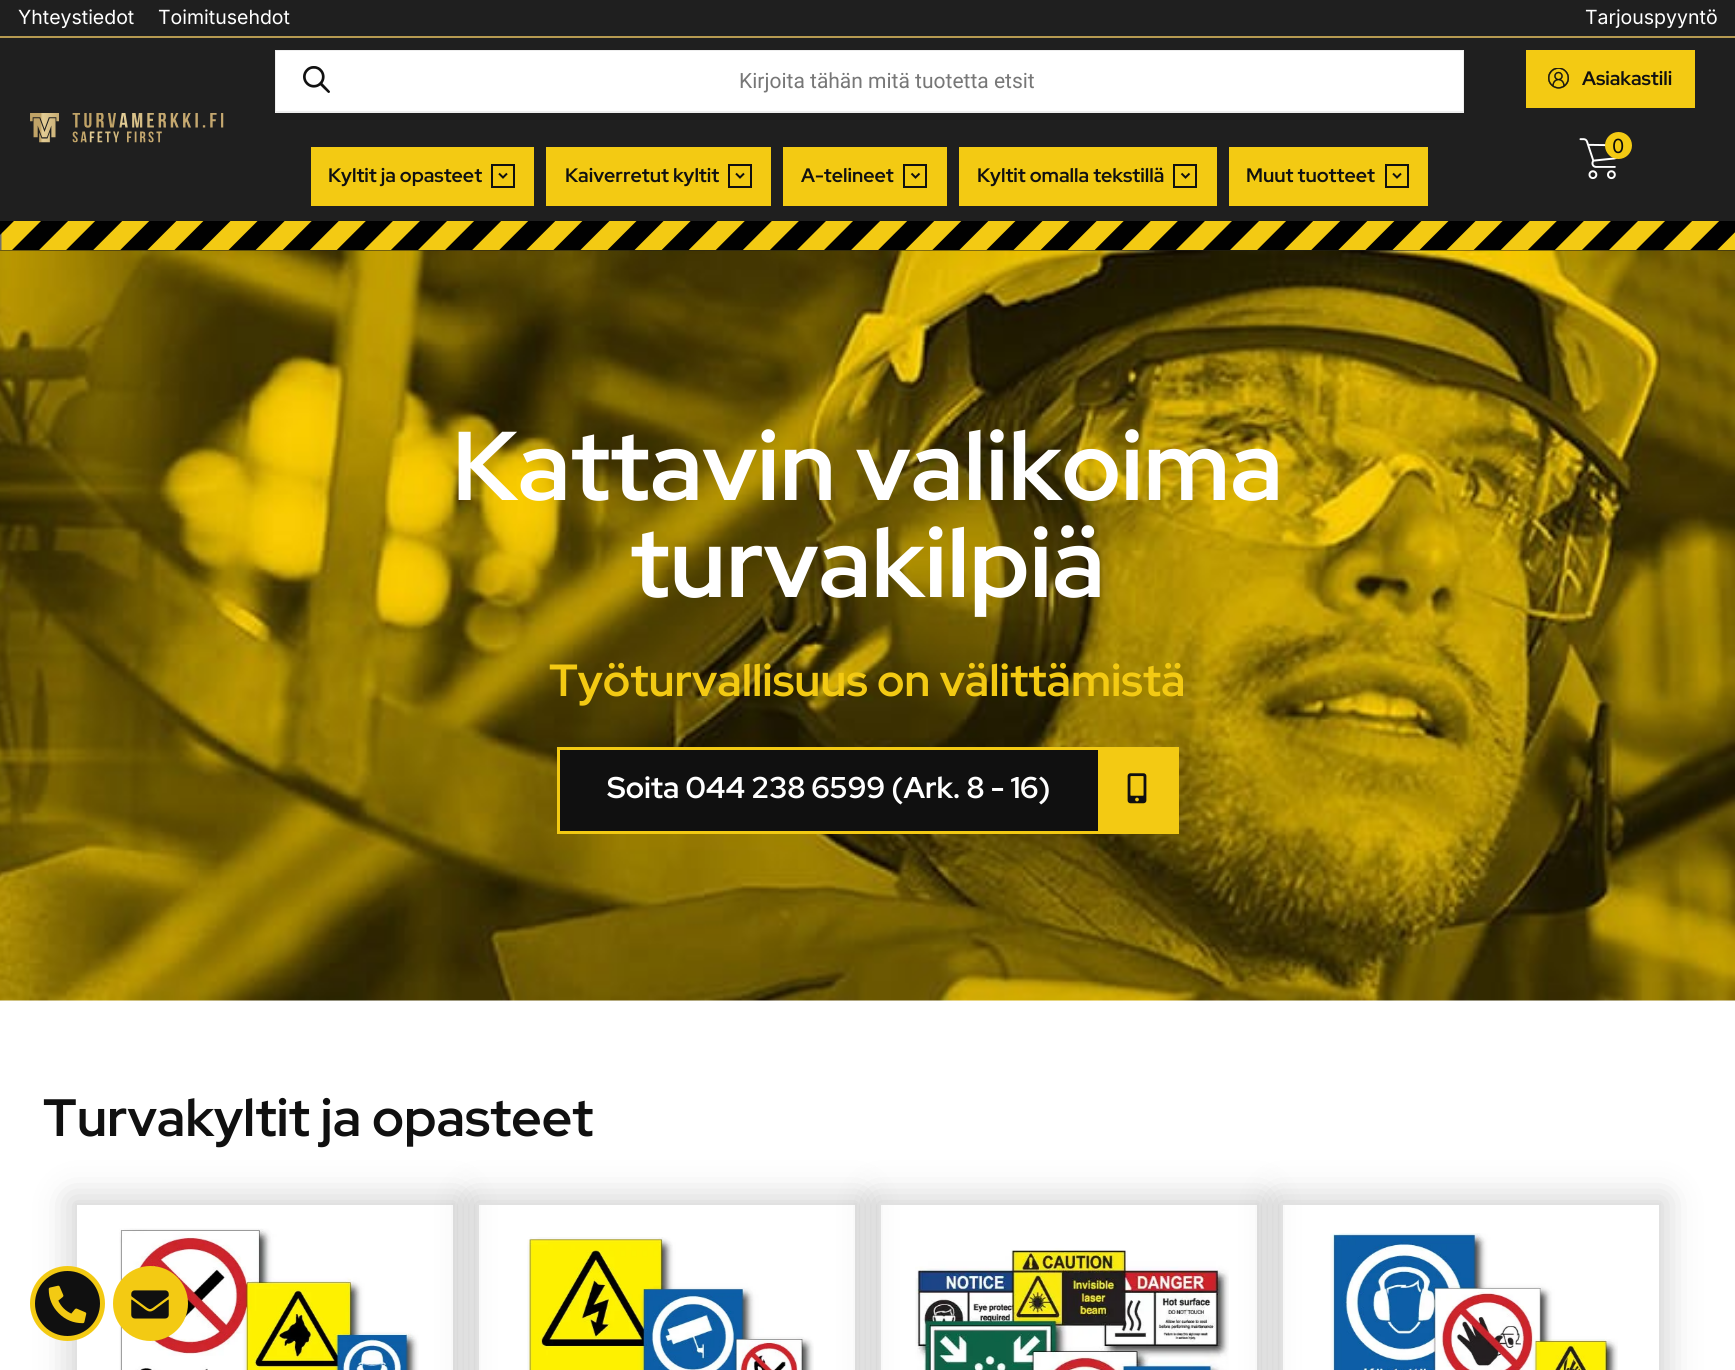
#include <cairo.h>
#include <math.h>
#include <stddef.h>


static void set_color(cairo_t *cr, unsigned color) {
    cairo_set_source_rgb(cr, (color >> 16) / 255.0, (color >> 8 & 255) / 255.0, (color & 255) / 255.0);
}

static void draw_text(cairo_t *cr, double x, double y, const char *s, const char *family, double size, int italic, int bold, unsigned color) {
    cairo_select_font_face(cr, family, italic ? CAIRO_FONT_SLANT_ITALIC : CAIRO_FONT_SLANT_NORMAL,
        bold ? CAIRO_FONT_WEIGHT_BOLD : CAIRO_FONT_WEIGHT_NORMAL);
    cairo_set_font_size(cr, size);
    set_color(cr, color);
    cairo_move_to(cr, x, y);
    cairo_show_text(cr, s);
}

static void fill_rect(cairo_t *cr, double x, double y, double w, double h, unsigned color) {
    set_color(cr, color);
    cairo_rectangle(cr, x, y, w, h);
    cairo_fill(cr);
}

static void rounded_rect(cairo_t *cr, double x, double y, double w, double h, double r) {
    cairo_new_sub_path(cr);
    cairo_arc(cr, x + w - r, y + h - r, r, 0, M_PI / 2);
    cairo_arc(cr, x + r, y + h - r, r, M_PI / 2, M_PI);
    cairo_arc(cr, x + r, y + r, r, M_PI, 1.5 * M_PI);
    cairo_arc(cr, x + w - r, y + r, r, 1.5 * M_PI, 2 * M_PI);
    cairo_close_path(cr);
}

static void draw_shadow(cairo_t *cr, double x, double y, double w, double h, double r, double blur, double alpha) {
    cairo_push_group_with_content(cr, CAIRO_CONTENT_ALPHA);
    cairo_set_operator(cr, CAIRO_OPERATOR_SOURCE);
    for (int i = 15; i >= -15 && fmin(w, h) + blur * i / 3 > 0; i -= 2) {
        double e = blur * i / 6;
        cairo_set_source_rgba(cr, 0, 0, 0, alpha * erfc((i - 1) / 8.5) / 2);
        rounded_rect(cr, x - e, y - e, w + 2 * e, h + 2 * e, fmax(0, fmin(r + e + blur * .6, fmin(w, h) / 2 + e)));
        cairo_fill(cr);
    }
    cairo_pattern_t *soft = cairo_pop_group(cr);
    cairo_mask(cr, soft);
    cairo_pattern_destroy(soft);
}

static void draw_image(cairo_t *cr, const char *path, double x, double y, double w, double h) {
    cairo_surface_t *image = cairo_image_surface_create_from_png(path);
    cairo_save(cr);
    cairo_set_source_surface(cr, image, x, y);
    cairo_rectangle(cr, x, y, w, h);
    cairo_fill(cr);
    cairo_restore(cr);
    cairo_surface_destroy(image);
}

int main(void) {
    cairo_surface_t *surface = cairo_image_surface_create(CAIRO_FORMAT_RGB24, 1735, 1370);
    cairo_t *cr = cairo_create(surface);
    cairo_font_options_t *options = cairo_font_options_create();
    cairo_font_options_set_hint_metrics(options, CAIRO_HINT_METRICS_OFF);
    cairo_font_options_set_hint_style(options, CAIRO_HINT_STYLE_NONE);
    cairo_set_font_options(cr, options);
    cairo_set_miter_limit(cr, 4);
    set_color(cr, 0xFFFFFF);
    cairo_paint(cr);
    fill_rect(cr, 0, 0, 1735, 36, 0x1F1F1F);
    fill_rect(cr, 0, 36, 1735, 2, 0xB59950);
    draw_text(cr, 18, 24, "Yhteystiedot", "Inter", 19.5, 0, 0, 0xFFFFFF);
    draw_text(cr, 158, 24, "Toimitusehdot", "Inter", 19.5, 0, 0, 0xFFFFFF);
    draw_text(cr, 1585, 24, "Tarjouspyyntö", "Inter", 19.5, 0, 0, 0xFFFFFF);
    fill_rect(cr, 0, 38, 1735, 183, 0x1F1F1F);
    draw_image(cr, "assets/img1.png", 30, 113, 194, 30);
    cairo_rectangle(cr, 276, 51, 1187, 61);
    set_color(cr, 0xEEEEEE);
    cairo_stroke(cr);
    fill_rect(cr, 276, 51, 1187, 60, 0xFFFFFF);
    draw_image(cr, "assets/img2.png", 303, 66, 27, 27);
    draw_text(cr, 739, 88, "Kirjoita tähän mitä tuotetta etsit", "Roboto", 21, 0, 0, 0x777777);
    fill_rect(cr, 311, 147, 223, 59, 0xF3CA13);
    draw_text(cr, 328, 182, "Kyltit ja opasteet", "Red Hat Display", 19.5, 0, 1, 0x101010);
    cairo_rectangle(cr, 492, 165, 22, 22);
    cairo_stroke(cr);
    cairo_new_path(cr);
    cairo_move_to(cr, 507, 173.5);
    cairo_line_to(cr, 503, 177.5);
    cairo_line_to(cr, 499, 173.5);
    cairo_stroke(cr);
    fill_rect(cr, 546, 147, 225, 59, 0xF3CA13);
    draw_text(cr, 565, 182, "Kaiverretut kyltit", "Red Hat Display", 19.5, 0, 1, 0x101010);
    cairo_rectangle(cr, 729, 165, 22, 22);
    cairo_stroke(cr);
    cairo_new_path(cr);
    cairo_move_to(cr, 744, 173.5);
    cairo_line_to(cr, 740, 177.5);
    cairo_line_to(cr, 736, 173.5);
    cairo_stroke(cr);
    fill_rect(cr, 783, 147, 164, 59, 0xF3CA13);
    draw_text(cr, 801, 182, "A-telineet", "Red Hat Display", 19.5, 0, 1, 0x101010);
    cairo_rectangle(cr, 904, 165, 22, 22);
    cairo_stroke(cr);
    cairo_new_path(cr);
    cairo_move_to(cr, 919.5, 173.5);
    cairo_line_to(cr, 915.5, 177.5);
    cairo_line_to(cr, 911.5, 173.5);
    cairo_stroke(cr);
    fill_rect(cr, 959, 147, 258, 59, 0xF3CA13);
    draw_text(cr, 977, 182, "Kyltit omalla tekstillä", "Red Hat Display", 19.5, 0, 1, 0x101010);
    cairo_rectangle(cr, 1174, 165, 22, 22);
    cairo_stroke(cr);
    cairo_new_path(cr);
    cairo_move_to(cr, 1189.5, 173.5);
    cairo_line_to(cr, 1185.5, 177.5);
    cairo_line_to(cr, 1181.5, 173.5);
    cairo_stroke(cr);
    fill_rect(cr, 1229, 147, 199, 59, 0xF3CA13);
    draw_text(cr, 1246, 182, "Muut tuotteet", "Red Hat Display", 19.5, 0, 1, 0x101010);
    cairo_rectangle(cr, 1386, 165, 22, 22);
    cairo_stroke(cr);
    cairo_new_path(cr);
    cairo_move_to(cr, 1401, 173.5);
    cairo_line_to(cr, 1397, 177.5);
    cairo_line_to(cr, 1393, 173.5);
    cairo_stroke(cr);
    fill_rect(cr, 1526, 50, 169, 58, 0xF3CA13);
    draw_image(cr, "assets/img3.png", 1548, 68, 21, 21);
    draw_text(cr, 1582, 85, "Asiakastili", "Red Hat Display", 19.5, 0, 1, 0x101010);
    draw_image(cr, "assets/img4.png", 1579, 138, 39, 42);
    set_color(cr, 0xF3CA13);
    cairo_arc(cr, 1618.5, 145.5, 13.5, 0, 2 * M_PI);
    cairo_fill(cr);
    draw_text(cr, 1612, 153, "0", "Inter", 19.5, 0, 0, 0x0A0A0A);
    fill_rect(cr, 0, 250, 1735, 1, 0x1F1F1F);
    draw_image(cr, "assets/img5.png", 0, 221, 1735, 29);
    draw_image(cr, "assets/img6.png", 0, 250, 1735, 751);
    draw_text(cr, 452, 500, "Kattavin valikoima", "Red Hat Display", 97.5, 0, 1, 0xFFFFFF);
    draw_text(cr, 630, 597, "turvakilpiä", "Red Hat Display", 97.5, 0, 1, 0xFFFFFF);
    draw_text(cr, 549, 696, "Työturvallisuus on välittämistä", "Red Hat Display", 45, 0, 1, 0xF3CA13);
    fill_rect(cr, 560, 750, 538, 81, 0x101010);
    cairo_rectangle(cr, 558.5, 748.5, 619, 84);
    set_color(cr, 0xF3CA13);
    cairo_set_line_width(cr, 3);
    cairo_stroke(cr);
    draw_text(cr, 607, 798, "Soita 044 238 6599 (Ark. 8 - 16)", "Red Hat Display", 30, 0, 1, 0xFFFFFF);
    fill_rect(cr, 1098, 750, 78, 81, 0xF3CA13);
    draw_image(cr, "assets/img7.png", 1127, 773, 20, 31);
    draw_text(cr, 43, 1136, "Turvakyltit ja opasteet", "Red Hat Display", 52.5, 0, 1, 0x101010);
    cairo_save(cr);
    cairo_set_fill_rule(cr, CAIRO_FILL_RULE_EVEN_ODD);
    cairo_new_path(cr);
    cairo_move_to(cr, 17, 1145);
    cairo_line_to(cr, 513, 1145);
    cairo_line_to(cr, 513, 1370);
    cairo_line_to(cr, 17, 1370);
    cairo_close_path(cr);
    cairo_move_to(cr, 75, 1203);
    cairo_line_to(cr, 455, 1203);
    cairo_line_to(cr, 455, 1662);
    cairo_line_to(cr, 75, 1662);
    cairo_close_path(cr);
    cairo_clip(cr);
    set_color(cr, 0x000000);
    draw_shadow(cr, 69, 1197, 392, 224, 0, 17, 0.17);
    cairo_restore(cr);
    fill_rect(cr, 75, 1203, 380, 2, 0xE1E1E1);
    fill_rect(cr, 453, 1203, 2, 167, 0xE1E1E1);
    fill_rect(cr, 75, 1203, 2, 167, 0xE1E1E1);
    draw_image(cr, "assets/img8.png", 119, 1228, 300, 142);
    cairo_save(cr);
    cairo_set_fill_rule(cr, CAIRO_FILL_RULE_EVEN_ODD);
    cairo_new_path(cr);
    cairo_move_to(cr, 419, 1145);
    cairo_line_to(cr, 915, 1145);
    cairo_line_to(cr, 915, 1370);
    cairo_line_to(cr, 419, 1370);
    cairo_close_path(cr);
    cairo_move_to(cr, 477, 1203);
    cairo_line_to(cr, 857, 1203);
    cairo_line_to(cr, 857, 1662);
    cairo_line_to(cr, 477, 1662);
    cairo_close_path(cr);
    cairo_clip(cr);
    set_color(cr, 0x000000);
    draw_shadow(cr, 471, 1197, 392, 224, 0, 17, 0.17);
    cairo_restore(cr);
    fill_rect(cr, 477, 1203, 380, 2, 0xE1E1E1);
    fill_rect(cr, 855, 1203, 2, 167, 0xE1E1E1);
    fill_rect(cr, 477, 1203, 2, 167, 0xE1E1E1);
    draw_image(cr, "assets/img9.png", 527, 1237, 287, 133);
    cairo_save(cr);
    cairo_set_fill_rule(cr, CAIRO_FILL_RULE_EVEN_ODD);
    cairo_new_path(cr);
    cairo_move_to(cr, 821, 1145);
    cairo_line_to(cr, 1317, 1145);
    cairo_line_to(cr, 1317, 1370);
    cairo_line_to(cr, 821, 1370);
    cairo_close_path(cr);
    cairo_move_to(cr, 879, 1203);
    cairo_line_to(cr, 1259, 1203);
    cairo_line_to(cr, 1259, 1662);
    cairo_line_to(cr, 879, 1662);
    cairo_close_path(cr);
    cairo_clip(cr);
    set_color(cr, 0x000000);
    draw_shadow(cr, 873, 1197, 392, 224, 0, 17, 0.17);
    cairo_restore(cr);
    fill_rect(cr, 879, 1203, 380, 2, 0xE1E1E1);
    fill_rect(cr, 1257, 1203, 2, 167, 0xE1E1E1);
    fill_rect(cr, 879, 1203, 2, 167, 0xE1E1E1);
    draw_image(cr, "assets/img10.png", 915, 1248, 314, 122);
    cairo_save(cr);
    cairo_set_fill_rule(cr, CAIRO_FILL_RULE_EVEN_ODD);
    cairo_new_path(cr);
    cairo_move_to(cr, 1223, 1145);
    cairo_line_to(cr, 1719, 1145);
    cairo_line_to(cr, 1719, 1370);
    cairo_line_to(cr, 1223, 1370);
    cairo_close_path(cr);
    cairo_move_to(cr, 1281, 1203);
    cairo_line_to(cr, 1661, 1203);
    cairo_line_to(cr, 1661, 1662);
    cairo_line_to(cr, 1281, 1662);
    cairo_close_path(cr);
    cairo_clip(cr);
    set_color(cr, 0x000000);
    draw_shadow(cr, 1275, 1197, 392, 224, 0, 17, 0.17);
    cairo_restore(cr);
    fill_rect(cr, 1281, 1203, 380, 2, 0xE1E1E1);
    fill_rect(cr, 1659, 1203, 2, 167, 0xE1E1E1);
    fill_rect(cr, 1281, 1203, 2, 167, 0xE1E1E1);
    draw_image(cr, "assets/img11.png", 1330, 1233, 288, 137);
    set_color(cr, 0x101010);
    cairo_arc(cr, 67.5, 1303.5, 35, 0, 2 * M_PI);
    cairo_fill_preserve(cr);
    set_color(cr, 0xF3CA13);
    cairo_set_line_width(cr, 5);
    cairo_stroke(cr);
    draw_image(cr, "assets/img12.png", 48, 1285, 39, 39);
    cairo_arc(cr, 150.5, 1303.5, 35, 0, 2 * M_PI);
    cairo_fill_preserve(cr);
    cairo_stroke(cr);
    draw_image(cr, "assets/img13.png", 131, 1290, 38, 29);
    cairo_surface_write_to_png(surface, "output.png");
    cairo_font_options_destroy(options);
    cairo_destroy(cr);
    cairo_surface_destroy(surface);
    return 0;
}
